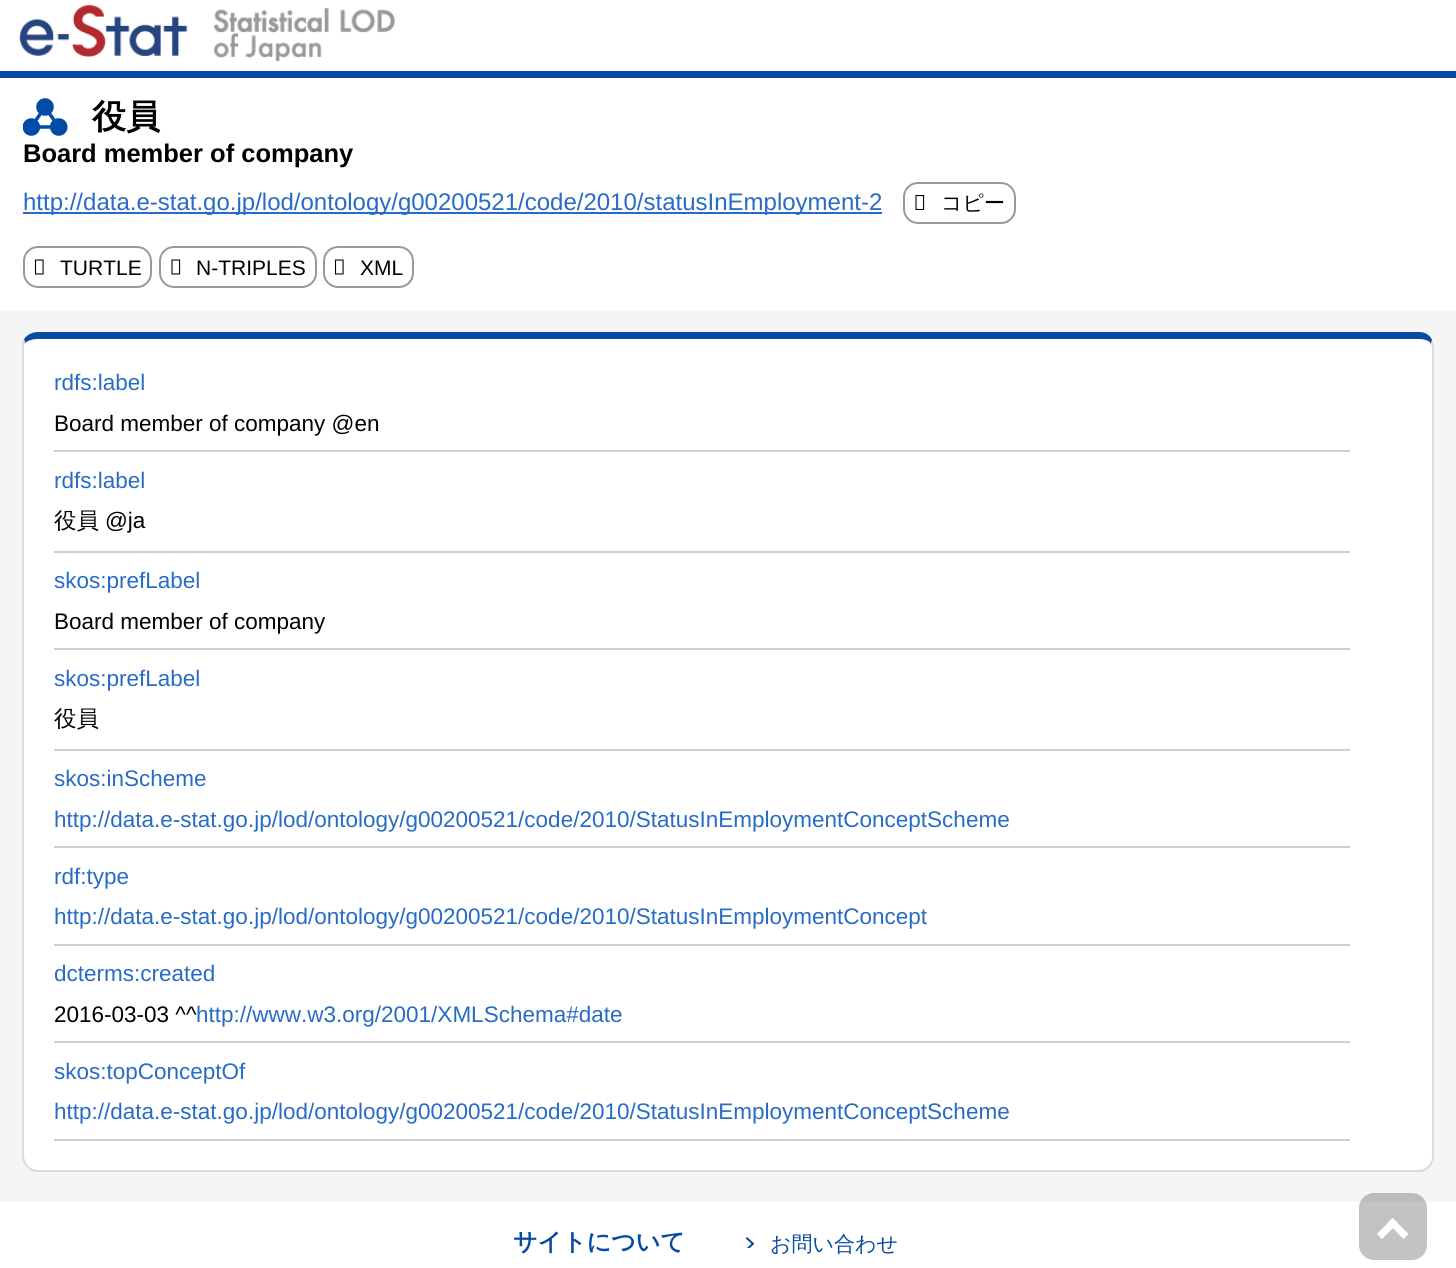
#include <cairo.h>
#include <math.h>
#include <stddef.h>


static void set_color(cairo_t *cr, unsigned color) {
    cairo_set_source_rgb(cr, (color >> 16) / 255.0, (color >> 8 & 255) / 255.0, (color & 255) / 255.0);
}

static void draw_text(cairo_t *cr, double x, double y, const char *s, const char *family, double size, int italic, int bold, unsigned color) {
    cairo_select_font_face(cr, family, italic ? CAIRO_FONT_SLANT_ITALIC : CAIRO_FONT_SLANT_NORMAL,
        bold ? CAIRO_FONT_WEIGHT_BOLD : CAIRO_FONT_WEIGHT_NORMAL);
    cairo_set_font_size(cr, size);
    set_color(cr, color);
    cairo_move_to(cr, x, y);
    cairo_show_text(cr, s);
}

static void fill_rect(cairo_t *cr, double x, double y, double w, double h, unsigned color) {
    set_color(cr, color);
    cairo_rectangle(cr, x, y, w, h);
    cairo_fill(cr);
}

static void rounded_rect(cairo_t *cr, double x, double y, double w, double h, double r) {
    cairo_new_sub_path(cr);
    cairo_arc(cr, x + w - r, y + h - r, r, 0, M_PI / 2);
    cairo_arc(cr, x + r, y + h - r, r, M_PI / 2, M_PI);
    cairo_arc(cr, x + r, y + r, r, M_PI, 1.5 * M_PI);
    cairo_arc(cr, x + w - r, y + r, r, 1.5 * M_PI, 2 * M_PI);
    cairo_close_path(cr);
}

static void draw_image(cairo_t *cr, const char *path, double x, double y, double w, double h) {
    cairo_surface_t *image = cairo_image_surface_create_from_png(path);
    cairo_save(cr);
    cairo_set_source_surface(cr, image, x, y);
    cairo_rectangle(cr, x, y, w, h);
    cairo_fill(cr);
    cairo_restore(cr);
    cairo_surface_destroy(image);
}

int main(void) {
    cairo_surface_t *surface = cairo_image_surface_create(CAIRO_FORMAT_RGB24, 1456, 1268);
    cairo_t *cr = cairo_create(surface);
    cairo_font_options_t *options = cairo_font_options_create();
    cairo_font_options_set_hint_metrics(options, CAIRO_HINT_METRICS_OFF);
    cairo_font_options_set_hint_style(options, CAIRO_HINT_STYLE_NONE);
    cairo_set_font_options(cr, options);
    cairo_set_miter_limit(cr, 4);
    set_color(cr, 0xFFFFFF);
    cairo_paint(cr);
    fill_rect(cr, 0, 71, 1456, 7, 0x084BA2);
    draw_image(cr, "assets/img1.png", 19, 5, 376, 56);
    draw_image(cr, "assets/img2.png", 23, 98, 45, 38);
    draw_text(cr, 92, 128, "役員", "WenQuanYi Zen Hei", 34, 0, 1, 0x000000);
    draw_text(cr, 23, 162, "Board member of company", "Liberation Sans", 25.5, 0, 1, 0x000000);
    fill_rect(cr, 23, 212, 859, 2, 0x286BC6);
    draw_text(cr, 23, 210, "http://data.e-stat.go.jp/lod/ontology/g00200521/code/2010/statusInEmployment-2", "Liberation Sans", 24, 0, 0, 0x286BC6);
    rounded_rect(cr, 904, 183, 111, 40, 14);
    set_color(cr, 0x999999);
    cairo_stroke(cr);
    draw_image(cr, "assets/img3.png", 915, 195, 10, 15);
    draw_text(cr, 941, 210, "コピー", "WenQuanYi Zen Hei Medium", 21, 0, 0, 0x000000);
    rounded_rect(cr, 24, 247, 127, 40, 14);
    set_color(cr, 0x999999);
    cairo_stroke(cr);
    draw_image(cr, "assets/img4.png", 34, 259, 10, 16);
    draw_text(cr, 60, 275, "TURTLE", "Liberation Sans", 21, 0, 0, 0x000000);
    rounded_rect(cr, 160, 247, 156, 40, 14);
    set_color(cr, 0x999999);
    cairo_stroke(cr);
    draw_image(cr, "assets/img5.png", 171, 259, 10, 16);
    draw_text(cr, 196, 275, "N-TRIPLES", "Liberation Sans", 21, 0, 0, 0x000000);
    rounded_rect(cr, 324, 247, 89, 40, 14);
    set_color(cr, 0x999999);
    cairo_stroke(cr);
    draw_image(cr, "assets/img4.png", 334, 259, 10, 16);
    draw_text(cr, 360, 275, "XML", "Liberation Sans", 21, 0, 0, 0x000000);
    fill_rect(cr, 0, 311, 1456, 891, 0xF5F5F5);
    set_color(cr, 0xFFFFFF);
    cairo_new_path(cr);
    cairo_move_to(cr, 38, 339);
    cairo_line_to(cr, 1419, 339);
    cairo_curve_to(cr, 1426, 339, 1432, 342, 1432, 346);
    cairo_line_to(cr, 1432, 1156);
    cairo_curve_to(cr, 1432, 1164, 1426, 1170, 1419, 1170);
    cairo_line_to(cr, 38, 1170);
    cairo_curve_to(cr, 30, 1170, 24, 1164, 24, 1156);
    cairo_line_to(cr, 24, 346);
    cairo_curve_to(cr, 24, 342, 30, 339, 38, 339);
    cairo_close_path(cr);
    cairo_fill(cr);
    set_color(cr, 0x084BA2);
    cairo_new_path(cr);
    cairo_move_to(cr, 38, 332);
    cairo_curve_to(cr, 32, 332, 27, 335, 24, 339);
    cairo_line_to(cr, 25, 343);
    cairo_curve_to(cr, 27, 341, 32, 339, 38, 339);
    cairo_line_to(cr, 1419, 339);
    cairo_curve_to(cr, 1425, 339, 1430, 341, 1431, 344);
    cairo_line_to(cr, 1432, 340);
    cairo_curve_to(cr, 1430, 335, 1425, 332, 1419, 332);
    cairo_close_path(cr);
    cairo_fill(cr);
    set_color(cr, 0xDADADA);
    cairo_new_path(cr);
    cairo_move_to(cr, 1434, 1156);
    cairo_line_to(cr, 1434, 346);
    cairo_curve_to(cr, 1434, 344, 1433, 342, 1432, 340);
    cairo_line_to(cr, 1431, 344);
    cairo_line_to(cr, 1432, 346);
    cairo_line_to(cr, 1432, 1156);
    cairo_curve_to(cr, 1432, 1160, 1431, 1163, 1428, 1166);
    cairo_line_to(cr, 1430, 1167);
    cairo_curve_to(cr, 1432, 1164, 1434, 1160, 1434, 1156);
    cairo_close_path(cr);
    cairo_fill(cr);
    cairo_new_path(cr);
    cairo_move_to(cr, 34, 1172);
    cairo_curve_to(cr, 31, 1171, 29, 1169, 27, 1167);
    cairo_line_to(cr, 28, 1166);
    cairo_curve_to(cr, 30, 1168, 34, 1170, 38, 1170);
    cairo_line_to(cr, 1419, 1170);
    cairo_curve_to(cr, 1423, 1170, 1426, 1168, 1428, 1166);
    cairo_line_to(cr, 1430, 1167);
    cairo_curve_to(cr, 1428, 1169, 1425, 1171, 1423, 1172);
    cairo_close_path(cr);
    cairo_fill(cr);
    cairo_new_path(cr);
    cairo_move_to(cr, 22, 342);
    cairo_line_to(cr, 24, 339);
    cairo_line_to(cr, 25, 343);
    cairo_line_to(cr, 24, 346);
    cairo_line_to(cr, 24, 1156);
    cairo_curve_to(cr, 24, 1160, 26, 1164, 28, 1166);
    cairo_line_to(cr, 27, 1167);
    cairo_curve_to(cr, 25, 1165, 23, 1163, 22, 1160);
    cairo_close_path(cr);
    cairo_fill(cr);
    fill_rect(cr, 54, 450, 1296, 2, 0xCFCFCF);
    draw_text(cr, 54, 390, "rdfs:label", "Liberation Sans", 22.5, 0, 0, 0x286BC6);
    draw_text(cr, 54, 431, "Board member of company @en", "Liberation Sans", 22.5, 0, 0, 0x000000);
    fill_rect(cr, 54, 551, 1296, 2, 0xCFCFCF);
    draw_text(cr, 54, 488, "rdfs:label", "Liberation Sans", 22.5, 0, 0, 0x286BC6);
    draw_text(cr, 54, 528, "役員", "WenQuanYi Zen Hei Medium", 22.5, 0, 0, 0x000000);
    draw_text(cr, 105, 528, "@ja", "Liberation Sans", 22.5, 0, 0, 0x000000);
    fill_rect(cr, 54, 648, 1296, 2, 0xCFCFCF);
    draw_text(cr, 54, 588, "skos:prefLabel", "Liberation Sans", 22.5, 0, 0, 0x286BC6);
    draw_text(cr, 54, 629, "Board member of company", "Liberation Sans", 22.5, 0, 0, 0x000000);
    fill_rect(cr, 54, 749, 1296, 2, 0xCFCFCF);
    draw_text(cr, 54, 686, "skos:prefLabel", "Liberation Sans", 22.5, 0, 0, 0x286BC6);
    draw_text(cr, 54, 726, "役員", "WenQuanYi Zen Hei Medium", 22.5, 0, 0, 0x000000);
    fill_rect(cr, 54, 846, 1296, 2, 0xCFCFCF);
    draw_text(cr, 54, 786, "skos:inScheme", "Liberation Sans", 22.5, 0, 0, 0x286BC6);
    draw_text(cr, 54, 827, "http://data.e-stat.go.jp/lod/ontology/g00200521/code/2010/StatusInEmploymentConceptScheme", "Liberation Sans", 22.5, 0, 0, 0x286BC6);
    fill_rect(cr, 54, 944, 1296, 2, 0xCFCFCF);
    draw_text(cr, 54, 884, "rdf:type", "Liberation Sans", 22.5, 0, 0, 0x286BC6);
    draw_text(cr, 54, 924, "http://data.e-stat.go.jp/lod/ontology/g00200521/code/2010/StatusInEmploymentConcept", "Liberation Sans", 22.5, 0, 0, 0x286BC6);
    fill_rect(cr, 54, 1041, 1296, 2, 0xCFCFCF);
    draw_text(cr, 54, 981, "dcterms:created", "Liberation Sans", 22.5, 0, 0, 0x286BC6);
    draw_text(cr, 54, 1022, "2016-03-03 ^^", "Liberation Sans", 22.5, 0, 0, 0x000000);
    draw_text(cr, 196, 1022, "http://www.w3.org/2001/XMLSchema#date", "Liberation Sans", 22.5, 0, 0, 0x286BC6);
    fill_rect(cr, 54, 1139, 1296, 2, 0xCFCFCF);
    draw_text(cr, 54, 1079, "skos:topConceptOf", "Liberation Sans", 22.5, 0, 0, 0x286BC6);
    draw_text(cr, 54, 1119, "http://data.e-stat.go.jp/lod/ontology/g00200521/code/2010/StatusInEmploymentConceptScheme", "Liberation Sans", 22.5, 0, 0, 0x286BC6);
    draw_text(cr, 513, 1250, "サイトについて", "WenQuanYi Zen Hei", 24, 0, 1, 0x084BA2);
    draw_image(cr, "assets/img6.png", 746, 1237, 9, 11);
    draw_text(cr, 770, 1251, "お問い合わせ", "WenQuanYi Zen Hei Medium", 21, 0, 0, 0x084BA2);
    cairo_set_source_rgba(cr, 0.314, 0.314, 0.314, 0.34);
    rounded_rect(cr, 1359, 1193, 68, 67, 15);
    cairo_fill(cr);
    set_color(cr, 0xFFFFFF);
    cairo_new_path(cr);
    cairo_move_to(cr, 1392.5, 1218);
    cairo_line_to(cr, 1408.5, 1234);
    cairo_line_to(cr, 1403.5, 1239);
    cairo_line_to(cr, 1387.5, 1223);
    cairo_close_path(cr);
    cairo_fill(cr);
    cairo_new_path(cr);
    cairo_move_to(cr, 1392.5, 1218);
    cairo_line_to(cr, 1398, 1223);
    cairo_line_to(cr, 1382, 1239);
    cairo_line_to(cr, 1377, 1234);
    cairo_close_path(cr);
    cairo_fill(cr);
    cairo_surface_write_to_png(surface, "output.png");
    cairo_font_options_destroy(options);
    cairo_destroy(cr);
    cairo_surface_destroy(surface);
    return 0;
}
